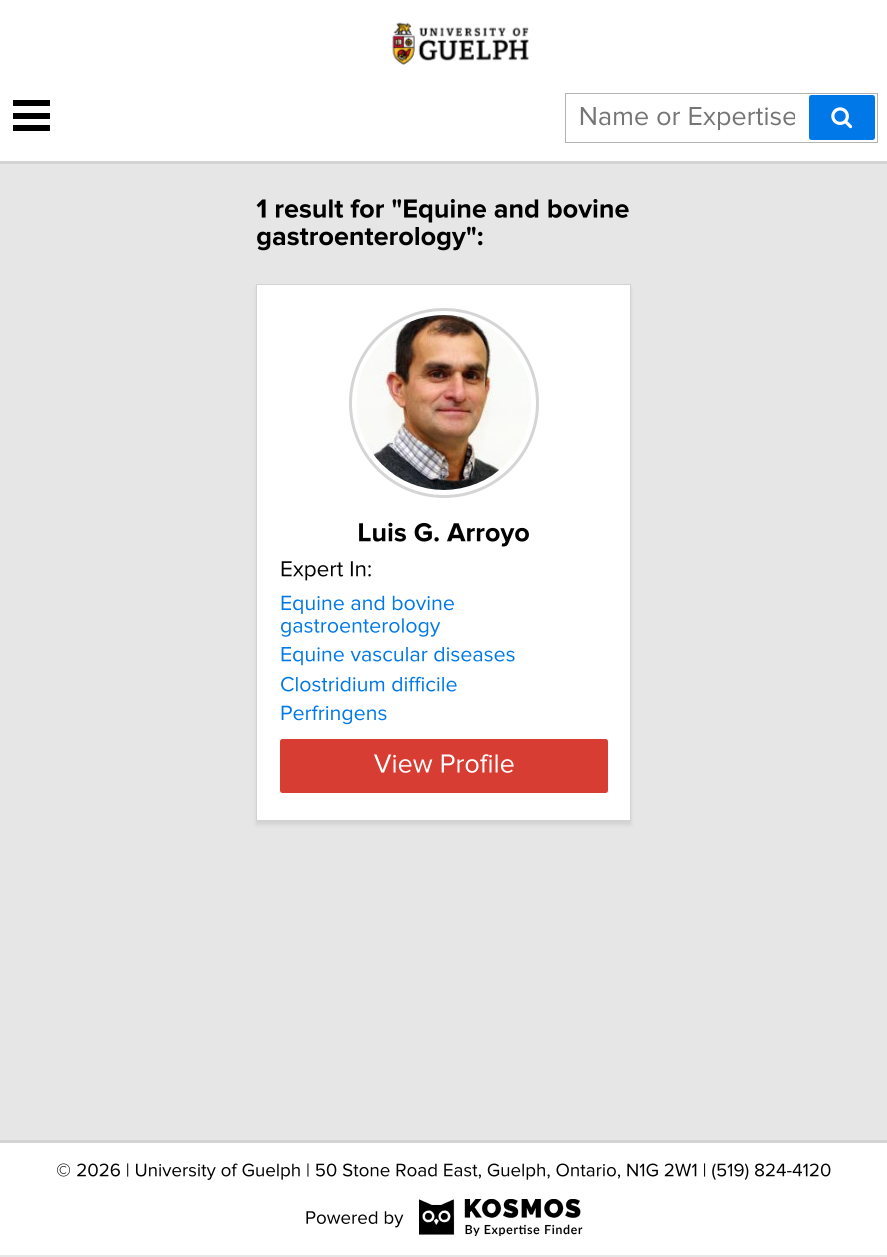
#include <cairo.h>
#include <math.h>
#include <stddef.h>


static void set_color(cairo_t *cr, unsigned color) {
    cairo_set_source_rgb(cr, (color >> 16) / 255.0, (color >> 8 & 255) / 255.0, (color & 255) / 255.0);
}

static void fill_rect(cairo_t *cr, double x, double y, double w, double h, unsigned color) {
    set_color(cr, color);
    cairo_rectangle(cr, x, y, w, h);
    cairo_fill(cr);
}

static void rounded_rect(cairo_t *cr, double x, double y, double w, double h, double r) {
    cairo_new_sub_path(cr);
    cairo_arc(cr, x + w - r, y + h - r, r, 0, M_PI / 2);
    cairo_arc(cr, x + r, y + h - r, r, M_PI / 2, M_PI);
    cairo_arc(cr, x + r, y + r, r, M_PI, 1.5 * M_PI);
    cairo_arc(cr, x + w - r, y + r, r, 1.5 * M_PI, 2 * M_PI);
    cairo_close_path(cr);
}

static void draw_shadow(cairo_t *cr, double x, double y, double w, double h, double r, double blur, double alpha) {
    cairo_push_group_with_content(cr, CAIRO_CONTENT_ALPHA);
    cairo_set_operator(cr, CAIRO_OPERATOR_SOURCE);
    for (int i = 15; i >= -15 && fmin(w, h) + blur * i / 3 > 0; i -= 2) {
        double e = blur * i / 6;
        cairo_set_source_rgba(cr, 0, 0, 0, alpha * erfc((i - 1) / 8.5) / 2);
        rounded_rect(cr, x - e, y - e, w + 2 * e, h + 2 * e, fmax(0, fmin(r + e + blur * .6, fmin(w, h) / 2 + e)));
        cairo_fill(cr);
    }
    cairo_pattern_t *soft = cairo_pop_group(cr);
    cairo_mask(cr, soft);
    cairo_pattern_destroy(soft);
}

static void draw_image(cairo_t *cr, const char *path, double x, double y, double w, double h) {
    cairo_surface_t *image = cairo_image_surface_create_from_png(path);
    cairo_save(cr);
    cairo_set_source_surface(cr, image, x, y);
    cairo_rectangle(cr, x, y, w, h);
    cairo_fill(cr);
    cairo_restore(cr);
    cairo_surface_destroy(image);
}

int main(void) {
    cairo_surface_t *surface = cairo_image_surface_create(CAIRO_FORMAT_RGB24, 887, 1257);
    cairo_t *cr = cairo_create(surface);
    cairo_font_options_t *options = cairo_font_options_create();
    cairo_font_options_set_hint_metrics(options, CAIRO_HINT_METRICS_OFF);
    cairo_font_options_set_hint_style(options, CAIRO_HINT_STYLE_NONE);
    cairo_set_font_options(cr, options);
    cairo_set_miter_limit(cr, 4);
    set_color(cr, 0xE6E6E6);
    cairo_paint(cr);
    fill_rect(cr, 0, 0, 887, 161, 0xFFFFFF);
    fill_rect(cr, 0, 161, 887, 3, 0xD3D3D3);
    draw_image(cr, "assets/img1.png", 392, 22, 137, 43);
    fill_rect(cr, 13, 100, 37, 6, 0x000000);
    fill_rect(cr, 13, 113, 37, 6, 0x000000);
    fill_rect(cr, 13, 125, 37, 6, 0x000000);
    cairo_rectangle(cr, 565.5, 93.5, 312, 49);
    set_color(cr, 0xB3B3B3);
    cairo_set_line_width(cr, 1);
    cairo_stroke(cr);
    draw_image(cr, "assets/img2.png", 580, 107, 215, 23);
    set_color(cr, 0x0078E7);
    rounded_rect(cr, 809, 95, 66, 45, 2.5);
    cairo_fill(cr);
    draw_image(cr, "assets/img3.png", 831, 107, 22, 22);
    draw_image(cr, "assets/img4.png", 256, 199, 373, 24);
    draw_image(cr, "assets/img5.png", 257, 226, 226, 25);
    set_color(cr, 0x000000);
    draw_shadow(cr, 256, 288, 375, 537, 0, 2, 0.09);
    set_color(cr, 0xFFFFFF);
    cairo_rectangle(cr, 256.5, 284.5, 374, 536);
    cairo_fill_preserve(cr);
    set_color(cr, 0xD3D3D3);
    cairo_stroke(cr);
    cairo_arc(cr, 444, 403, 93.5, 0, 2 * M_PI);
    set_color(cr, 0xD5D5D5);
    cairo_set_line_width(cr, 3);
    cairo_stroke(cr);
    draw_image(cr, "assets/img6.png", 357, 315, 174, 175);
    draw_image(cr, "assets/img7.png", 359, 522, 170, 25);
    draw_image(cr, "assets/img8.png", 281, 561, 90, 20);
    draw_image(cr, "assets/img9.png", 281, 595, 173, 19);
    draw_image(cr, "assets/img10.png", 281, 618, 160, 19);
    draw_image(cr, "assets/img11.png", 281, 647, 63, 19);
    draw_image(cr, "assets/img12.png", 350, 647, 165, 15);
    draw_image(cr, "assets/img13.png", 281, 676, 176, 16);
    draw_image(cr, "assets/img14.png", 281, 705, 106, 20);
    set_color(cr, 0xD73D32);
    rounded_rect(cr, 280, 739, 328, 54, 2.5);
    cairo_fill(cr);
    draw_image(cr, "assets/img15.png", 374, 754, 140, 19);
    fill_rect(cr, 0, 1143, 887, 112, 0xFFFFFF);
    fill_rect(cr, 0, 1140, 887, 3, 0xD3D3D3);
    draw_image(cr, "assets/img16.png", 57, 1163, 13, 14);
    draw_image(cr, "assets/img17.png", 77, 1163, 754, 17);
    draw_image(cr, "assets/img18.png", 306, 1211, 98, 17);
    draw_image(cr, "assets/img19.png", 419, 1199, 164, 37);
    cairo_surface_write_to_png(surface, "output.png");
    cairo_font_options_destroy(options);
    cairo_destroy(cr);
    cairo_surface_destroy(surface);
    return 0;
}
